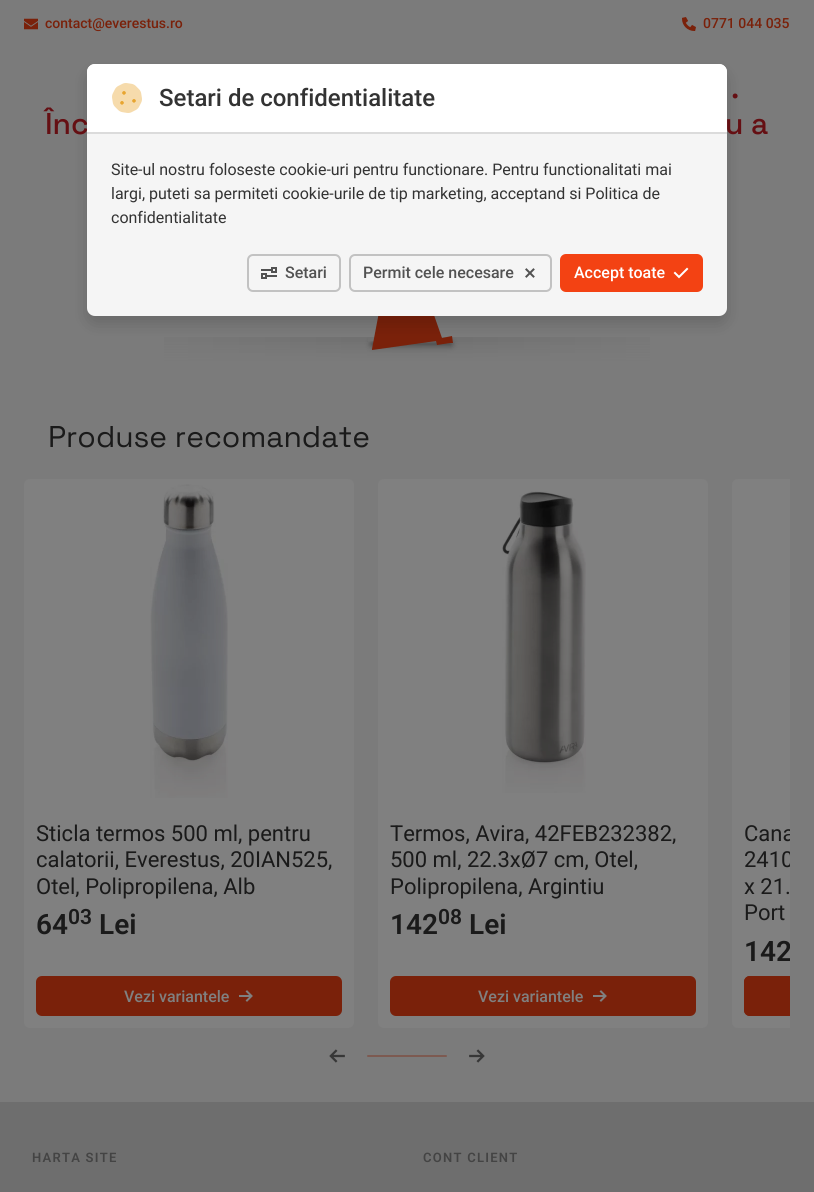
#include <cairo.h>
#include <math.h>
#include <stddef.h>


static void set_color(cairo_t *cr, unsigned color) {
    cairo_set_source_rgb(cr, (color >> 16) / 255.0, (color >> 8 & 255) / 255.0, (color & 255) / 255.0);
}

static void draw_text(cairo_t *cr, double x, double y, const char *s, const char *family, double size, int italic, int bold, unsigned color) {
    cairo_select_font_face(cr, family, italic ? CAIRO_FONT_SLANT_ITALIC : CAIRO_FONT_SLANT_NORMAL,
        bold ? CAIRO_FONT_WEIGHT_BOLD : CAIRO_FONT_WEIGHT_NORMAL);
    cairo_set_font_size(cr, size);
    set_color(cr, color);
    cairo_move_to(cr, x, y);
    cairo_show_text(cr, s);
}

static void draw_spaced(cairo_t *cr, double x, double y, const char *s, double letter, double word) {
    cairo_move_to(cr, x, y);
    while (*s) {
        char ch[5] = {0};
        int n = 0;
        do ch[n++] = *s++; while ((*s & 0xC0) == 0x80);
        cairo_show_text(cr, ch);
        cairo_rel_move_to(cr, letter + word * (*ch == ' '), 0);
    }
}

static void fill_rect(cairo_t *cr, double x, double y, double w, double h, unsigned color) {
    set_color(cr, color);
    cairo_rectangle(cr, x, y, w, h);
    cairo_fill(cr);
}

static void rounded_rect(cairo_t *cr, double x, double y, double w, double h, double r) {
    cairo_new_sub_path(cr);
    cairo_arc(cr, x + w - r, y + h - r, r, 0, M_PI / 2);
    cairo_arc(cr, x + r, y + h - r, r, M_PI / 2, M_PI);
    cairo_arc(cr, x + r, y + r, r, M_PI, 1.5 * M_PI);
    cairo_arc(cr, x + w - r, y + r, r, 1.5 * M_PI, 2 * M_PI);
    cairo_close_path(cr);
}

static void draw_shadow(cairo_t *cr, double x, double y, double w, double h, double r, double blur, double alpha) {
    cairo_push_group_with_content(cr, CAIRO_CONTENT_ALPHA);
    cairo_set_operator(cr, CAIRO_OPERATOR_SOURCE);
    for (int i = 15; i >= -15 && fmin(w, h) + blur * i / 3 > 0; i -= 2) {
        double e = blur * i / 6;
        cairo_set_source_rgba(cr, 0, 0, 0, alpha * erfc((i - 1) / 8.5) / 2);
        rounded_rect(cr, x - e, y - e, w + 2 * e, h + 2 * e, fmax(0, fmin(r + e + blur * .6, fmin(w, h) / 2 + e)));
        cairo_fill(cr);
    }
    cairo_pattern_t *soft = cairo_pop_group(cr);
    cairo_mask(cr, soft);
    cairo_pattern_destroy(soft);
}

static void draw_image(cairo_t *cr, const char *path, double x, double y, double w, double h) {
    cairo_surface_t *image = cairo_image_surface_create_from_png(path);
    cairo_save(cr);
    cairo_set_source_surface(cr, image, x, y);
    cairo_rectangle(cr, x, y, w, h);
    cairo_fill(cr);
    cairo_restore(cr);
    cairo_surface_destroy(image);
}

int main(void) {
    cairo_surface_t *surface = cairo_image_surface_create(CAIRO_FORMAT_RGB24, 814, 1192);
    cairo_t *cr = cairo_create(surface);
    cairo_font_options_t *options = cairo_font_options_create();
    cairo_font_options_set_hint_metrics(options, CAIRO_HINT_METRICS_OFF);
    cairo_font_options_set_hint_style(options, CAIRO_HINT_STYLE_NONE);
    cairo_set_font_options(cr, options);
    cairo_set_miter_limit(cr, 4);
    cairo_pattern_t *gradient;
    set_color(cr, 0x7B7B7B);
    cairo_paint(cr);
    draw_image(cr, "assets/img1.png", 24, 18, 14, 12);
    draw_text(cr, 45, 28, "contact@everestus.ro", "Roboto Medium", 14, 0, 0, 0x7A210A);
    draw_image(cr, "assets/img2.png", 682, 17, 14, 14);
    draw_text(cr, 703, 28, "0771 044 035", "Roboto Medium", 14, 0, 0, 0x7A210A);
    gradient = cairo_pattern_create_linear(24, 349, 790, 349);
    cairo_pattern_add_color_stop_rgba(gradient, 0.1, 0.482, 0.482, 0.482, 1);
    cairo_pattern_add_color_stop_rgba(gradient, 0.5, 0.435, 0.435, 0.435, 1);
    cairo_pattern_add_color_stop_rgba(gradient, 0.9, 0.482, 0.482, 0.482, 1);
    cairo_set_source(cr, gradient);
    cairo_pattern_destroy(gradient);
    cairo_rectangle(cr, 164, 337, 486, 24);
    cairo_fill(cr);
    gradient = cairo_pattern_create_linear(407, 361, 407, 337);
    cairo_pattern_add_color_stop_rgba(gradient, 0, 0.482, 0.482, 0.482, 1);
    cairo_pattern_add_color_stop_rgba(gradient, 1, 0.482, 0.482, 0.482, 0);
    cairo_set_source(cr, gradient);
    cairo_pattern_destroy(gradient);
    cairo_rectangle(cr, 164, 342, 486, 19);
    cairo_fill(cr);
    cairo_save(cr);
    cairo_set_fill_rule(cr, CAIRO_FILL_RULE_EVEN_ODD);
    cairo_new_path(cr);
    cairo_move_to(cr, 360, 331);
    cairo_line_to(cr, 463, 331);
    cairo_line_to(cr, 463, 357);
    cairo_line_to(cr, 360, 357);
    cairo_close_path(cr);
    cairo_move_to(cr, 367.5, 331.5);
    cairo_line_to(cr, 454.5, 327);
    cairo_line_to(cr, 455, 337);
    cairo_line_to(cr, 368, 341.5);
    cairo_close_path(cr);
    cairo_clip(cr);
    set_color(cr, 0x404040);
    draw_shadow(cr, 372, 343, 79, 2, 0, 3.5, 1);
    cairo_restore(cr);
    set_color(cr, 0x7A210A);
    cairo_set_fill_rule(cr, CAIRO_FILL_RULE_EVEN_ODD);
    cairo_new_path(cr);
    cairo_move_to(cr, 450, 343);
    cairo_line_to(cr, 437, 345);
    cairo_line_to(cr, 436, 341);
    cairo_line_to(cr, 372, 350);
    cairo_line_to(cr, 372, 349);
    cairo_line_to(cr, 379, 312);
    cairo_line_to(cr, 424, 306);
    cairo_line_to(cr, 422, 299);
    cairo_line_to(cr, 375, 306);
    cairo_line_to(cr, 374, 299);
    cairo_line_to(cr, 426, 292);
    cairo_line_to(cr, 442, 338);
    cairo_line_to(cr, 452, 336);
    cairo_line_to(cr, 453, 343);
    cairo_close_path(cr);
    cairo_move_to(cr, 419, 275);
    cairo_curve_to(cr, 410, 276, 412, 289, 421, 288);
    cairo_curve_to(cr, 429, 287, 428, 273, 419, 275);
    cairo_close_path(cr);
    cairo_move_to(cr, 373, 288);
    cairo_curve_to(cr, 374, 297, 387, 295, 386, 286);
    cairo_curve_to(cr, 385, 277, 372, 279, 373, 288);
    cairo_close_path(cr);
    cairo_fill(cr);
    set_color(cr, 0x000000);
    draw_shadow(cr, 87, 72, 640, 252, 8, 8, 0.15);
    draw_text(cr, 45, 134, "Înc", "Space Grotesk Medium", 30, 0, 0, 0x650F13);
    set_color(cr, 0xF5F5F5);
    rounded_rect(cr, 87, 64, 640, 252, 8);
    cairo_fill(cr);
    set_color(cr, 0xFFFFFF);
    cairo_new_path(cr);
    cairo_move_to(cr, 95, 64);
    cairo_line_to(cr, 719, 64);
    cairo_curve_to(cr, 723.5, 64, 727, 67.5, 727, 72);
    cairo_line_to(cr, 727, 134);
    cairo_line_to(cr, 87, 134);
    cairo_line_to(cr, 87, 72);
    cairo_curve_to(cr, 87, 67.5, 90.5, 64, 95, 64);
    cairo_close_path(cr);
    cairo_fill(cr);
    fill_rect(cr, 87, 132, 640, 2, 0xDBDBDB);
    draw_image(cr, "assets/img3.png", 112, 83, 30, 30);
    draw_text(cr, 159, 106, "Setari de confidentialitate", "Roboto Medium", 24, 0, 0, 0x333333);
    draw_text(cr, 111, 175, "Site-ul nostru foloseste cookie-uri pentru functionare. Pentru functionalitati mai", "Roboto", 16, 0, 0, 0x333333);
    draw_text(cr, 111, 199, "largi, puteti sa permiteti cookie-urile de tip marketing, acceptand si Politica de", "Roboto", 16, 0, 0, 0x333333);
    draw_text(cr, 111, 223, "confidentialitate", "Roboto", 16, 0, 0, 0x333333);
    rounded_rect(cr, 248, 255, 92, 36, 5);
    set_color(cr, 0xC2C2C2);
    cairo_stroke(cr);
    draw_image(cr, "assets/img4.png", 261, 267, 16, 12);
    draw_text(cr, 285, 278, "Setari", "Roboto Medium", 16, 0, 0, 0x525252);
    rounded_rect(cr, 350, 255, 201, 36, 5);
    set_color(cr, 0xC2C2C2);
    cairo_stroke(cr);
    draw_text(cr, 363, 278, "Permit cele necesare", "Roboto Medium", 16, 0, 0, 0x525252);
    draw_image(cr, "assets/img5.png", 525, 268, 10, 10);
    set_color(cr, 0xF34213);
    rounded_rect(cr, 561, 255, 141, 36, 5);
    cairo_fill_preserve(cr);
    cairo_stroke(cr);
    draw_text(cr, 574, 278, "Accept toate", "Roboto Medium", 16, 0, 0, 0xFFFFFF);
    draw_image(cr, "assets/img6.png", 673, 267, 16, 12);
    draw_text(cr, 731, 98, ".", "Space Grotesk Medium", 30, 0, 0, 0x650F13);
    draw_text(cr, 725, 134, "u a", "Space Grotesk Medium", 30, 0, 0, 0x650F13);
    draw_text(cr, 48, 447, "Produse recomandate", "Space Grotesk", 30, 0, 0, 0x1A1A1A);
    set_color(cr, 0x808080);
    rounded_rect(cr, 24, 479, 330, 549, 6);
    cairo_fill(cr);
    draw_image(cr, "assets/img7.png", 150, 484, 78, 314);
    draw_text(cr, 36, 841, "Sticla termos 500 ml, pentru", "Roboto", 22, 0, 0, 0x1A1A1A);
    draw_text(cr, 36, 867, "calatorii, Everestus, 20IAN525,", "Roboto", 22, 0, 0, 0x1A1A1A);
    draw_text(cr, 36, 894, "Otel, Polipropilena, Alb", "Roboto", 22, 0, 0, 0x1A1A1A);
    draw_text(cr, 36, 934, "64", "Roboto SemiBold", 28, 0, 0, 0x1A1A1A);
    draw_text(cr, 68, 924, "03", "Roboto SemiBold", 21, 0, 0, 0x1A1A1A);
    draw_text(cr, 99, 934, "Lei", "Roboto SemiBold", 28, 0, 0, 0x1A1A1A);
    set_color(cr, 0x7A210A);
    rounded_rect(cr, 37, 977, 304, 38, 5);
    cairo_fill_preserve(cr);
    cairo_stroke(cr);
    draw_text(cr, 124, 1002, "Vezi variantele", "Roboto Medium", 16, 0, 0, 0x808080);
    draw_image(cr, "assets/img8.png", 239, 990, 14, 12);
    rounded_rect(cr, 378, 479, 330, 549, 6);
    cairo_fill(cr);
    draw_image(cr, "assets/img9.png", 502, 491, 84, 302);
    draw_text(cr, 390, 841, "Termos, Avira, 42FEB232382,", "Roboto", 22, 0, 0, 0x1A1A1A);
    draw_text(cr, 390, 867, "500 ml, 22.3xØ7 cm, Otel,", "Roboto", 22, 0, 0, 0x1A1A1A);
    draw_text(cr, 390, 894, "Polipropilena, Argintiu", "Roboto", 22, 0, 0, 0x1A1A1A);
    draw_text(cr, 390, 934, "142", "Roboto SemiBold", 28, 0, 0, 0x1A1A1A);
    draw_text(cr, 438, 924, "08", "Roboto SemiBold", 21, 0, 0, 0x1A1A1A);
    draw_text(cr, 469, 934, "Lei", "Roboto SemiBold", 28, 0, 0, 0x1A1A1A);
    set_color(cr, 0x7A210A);
    rounded_rect(cr, 391, 977, 304, 38, 5);
    cairo_fill_preserve(cr);
    cairo_stroke(cr);
    draw_text(cr, 478, 1002, "Vezi variantele", "Roboto Medium", 16, 0, 0, 0x808080);
    draw_image(cr, "assets/img8.png", 593, 990, 14, 12);
    cairo_new_path(cr);
    cairo_move_to(cr, 738, 479);
    cairo_line_to(cr, 790, 479);
    cairo_line_to(cr, 790, 1028);
    cairo_line_to(cr, 738, 1028);
    cairo_curve_to(cr, 734.5, 1028, 732, 1025.5, 732, 1022);
    cairo_line_to(cr, 732, 485);
    cairo_curve_to(cr, 732, 481.5, 734.5, 479, 738, 479);
    cairo_close_path(cr);
    cairo_fill(cr);
    cairo_save(cr);
    cairo_set_fill_rule(cr, CAIRO_FILL_RULE_WINDING);
    cairo_rectangle(cr, 24, 479, 766, 549);
    cairo_clip(cr);
    draw_text(cr, 744, 841, "Cana", "Roboto", 22, 0, 0, 0x1A1A1A);
    draw_text(cr, 744, 867, "2410", "Roboto", 22, 0, 0, 0x1A1A1A);
    cairo_restore(cr);
    draw_text(cr, 744, 894, "x 21.", "Roboto", 22, 0, 0, 0x1A1A1A);
    draw_text(cr, 744, 920, "Port", "Roboto", 22, 0, 0, 0x1A1A1A);
    cairo_save(cr);
    cairo_set_fill_rule(cr, CAIRO_FILL_RULE_WINDING);
    cairo_rectangle(cr, 24, 479, 766, 549);
    cairo_clip(cr);
    draw_text(cr, 744, 961, "142", "Roboto SemiBold", 28, 0, 0, 0x1A1A1A);
    cairo_restore(cr);
    set_color(cr, 0x7A210A);
    cairo_new_path(cr);
    cairo_move_to(cr, 750, 976);
    cairo_line_to(cr, 790, 976);
    cairo_line_to(cr, 790, 1016);
    cairo_line_to(cr, 750, 1016);
    cairo_curve_to(cr, 746.5, 1016, 744, 1013.5, 744, 1010);
    cairo_line_to(cr, 744, 982);
    cairo_curve_to(cr, 744, 978.5, 746.5, 976, 750, 976);
    cairo_close_path(cr);
    cairo_fill(cr);
    cairo_save(cr);
    cairo_set_fill_rule(cr, CAIRO_FILL_RULE_WINDING);
    cairo_rectangle(cr, 24, 479, 766, 549);
    cairo_clip(cr);
    rounded_rect(cr, 745, 977, 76, 38, 5);
    cairo_stroke(cr);
    cairo_restore(cr);
    draw_image(cr, "assets/img10.png", 329, 1049, 16, 14);
    set_color(cr, 0x7D5A51);
    rounded_rect(cr, 367, 1055, 80, 2, 1);
    cairo_fill(cr);
    draw_image(cr, "assets/img11.png", 469, 1049, 16, 14);
    fill_rect(cr, 0, 1102, 814, 90, 0x6E6E6E);
    cairo_select_font_face(cr, "Roboto SemiBold", CAIRO_FONT_SLANT_NORMAL, CAIRO_FONT_WEIGHT_NORMAL);
    cairo_set_font_size(cr, 13);
    set_color(cr, 0x444444);
    draw_spaced(cr, 32, 1162, "HARTA SITE", 1.25, 0);
    draw_spaced(cr, 423, 1162, "CONT CLIENT", 1.25, 0);
    cairo_surface_write_to_png(surface, "output.png");
    cairo_font_options_destroy(options);
    cairo_destroy(cr);
    cairo_surface_destroy(surface);
    return 0;
}
